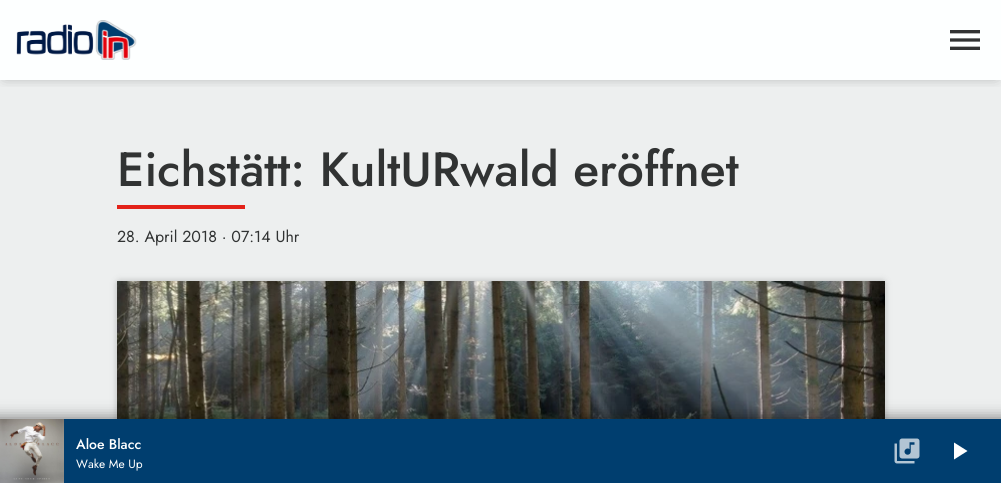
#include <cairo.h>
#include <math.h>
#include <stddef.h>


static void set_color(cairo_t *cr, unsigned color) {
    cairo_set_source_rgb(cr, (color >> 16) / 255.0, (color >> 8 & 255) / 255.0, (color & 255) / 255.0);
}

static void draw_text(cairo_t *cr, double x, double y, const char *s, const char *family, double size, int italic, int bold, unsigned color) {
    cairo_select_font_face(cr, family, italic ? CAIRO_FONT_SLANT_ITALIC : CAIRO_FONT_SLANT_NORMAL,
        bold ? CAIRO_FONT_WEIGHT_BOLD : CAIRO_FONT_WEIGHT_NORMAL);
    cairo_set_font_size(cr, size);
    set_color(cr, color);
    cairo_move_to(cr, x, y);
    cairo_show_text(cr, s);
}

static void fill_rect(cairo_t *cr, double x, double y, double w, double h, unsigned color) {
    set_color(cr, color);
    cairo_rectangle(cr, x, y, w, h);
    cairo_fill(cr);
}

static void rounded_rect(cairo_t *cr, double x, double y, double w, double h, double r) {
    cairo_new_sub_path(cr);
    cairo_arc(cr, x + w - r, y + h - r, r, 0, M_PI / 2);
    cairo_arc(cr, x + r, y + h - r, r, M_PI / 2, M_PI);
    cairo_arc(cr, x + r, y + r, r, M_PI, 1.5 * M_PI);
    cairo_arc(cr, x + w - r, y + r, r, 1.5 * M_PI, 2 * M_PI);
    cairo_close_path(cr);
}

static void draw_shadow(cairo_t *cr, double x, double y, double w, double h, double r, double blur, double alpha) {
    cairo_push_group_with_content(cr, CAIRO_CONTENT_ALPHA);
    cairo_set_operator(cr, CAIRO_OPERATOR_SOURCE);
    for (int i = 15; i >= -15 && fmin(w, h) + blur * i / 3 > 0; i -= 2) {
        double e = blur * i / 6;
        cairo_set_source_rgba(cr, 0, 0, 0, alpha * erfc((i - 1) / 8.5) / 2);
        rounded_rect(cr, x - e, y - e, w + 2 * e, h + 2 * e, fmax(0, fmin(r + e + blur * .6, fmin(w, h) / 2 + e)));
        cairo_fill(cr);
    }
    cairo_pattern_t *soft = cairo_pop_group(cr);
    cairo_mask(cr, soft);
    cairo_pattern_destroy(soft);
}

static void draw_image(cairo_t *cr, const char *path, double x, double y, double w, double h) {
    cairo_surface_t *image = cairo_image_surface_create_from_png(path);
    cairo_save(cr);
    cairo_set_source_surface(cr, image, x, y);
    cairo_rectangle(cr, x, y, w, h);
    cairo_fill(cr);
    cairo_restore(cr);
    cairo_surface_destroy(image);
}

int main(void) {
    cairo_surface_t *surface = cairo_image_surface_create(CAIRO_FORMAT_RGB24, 1001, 483);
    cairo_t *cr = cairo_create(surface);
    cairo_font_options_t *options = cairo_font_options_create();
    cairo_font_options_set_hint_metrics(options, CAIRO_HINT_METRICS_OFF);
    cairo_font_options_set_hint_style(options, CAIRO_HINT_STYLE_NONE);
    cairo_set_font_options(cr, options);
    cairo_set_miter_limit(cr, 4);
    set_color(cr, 0xFDFFFF);
    cairo_paint(cr);
    fill_rect(cr, 0, 80, 1001, 339, 0xEDEFEF);
    cairo_save(cr);
    cairo_rectangle(cr, 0, 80, 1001, 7);
    cairo_clip(cr);
    set_color(cr, 0x000000);
    draw_shadow(cr, 5, 5, 991, 70, 0, 7.5, 0.4);
    cairo_restore(cr);
    draw_image(cr, "assets/img1.png", 16, 20, 121, 40);
    draw_image(cr, "assets/img2.png", 950, 30, 30, 20);
    draw_text(cr, 117, 186, "Eichstätt: KultURwald eröffnet", "Jost Medium", 48, 0, 0, 0x313333);
    fill_rect(cr, 117, 205, 128, 4, 0xE32219);
    draw_text(cr, 117, 242, "28. April 2018 · 07:14 Uhr", "Jost", 16, 0, 0, 0x313333);
    set_color(cr, 0x000000);
    draw_shadow(cr, 119, 283, 764, 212, 0, 4, 0.4);
    draw_image(cr, "assets/img3.png", 117, 281, 768, 138);
    draw_shadow(cr, -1, 418, 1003, 2, 0, 7.5, 0.5);
    fill_rect(cr, 64, 419, 937, 64, 0x003E6F);
    draw_image(cr, "assets/img4.png", 0, 419, 64, 64);
    draw_text(cr, 76, 449, "Aloe Blacc", "Jost Medium", 14, 0, 0, 0xFFFFFF);
    draw_text(cr, 76, 468, "Wake Me Up", "Jost", 12, 0, 0, 0xFFFFFF);
    draw_image(cr, "assets/img5.png", 894, 438, 26, 26);
    cairo_new_path(cr);
    cairo_move_to(cr, 954, 442.5);
    cairo_line_to(cr, 967.5, 451);
    cairo_line_to(cr, 954, 459.5);
    cairo_close_path(cr);
    cairo_fill(cr);
    cairo_surface_write_to_png(surface, "output.png");
    cairo_font_options_destroy(options);
    cairo_destroy(cr);
    cairo_surface_destroy(surface);
    return 0;
}
